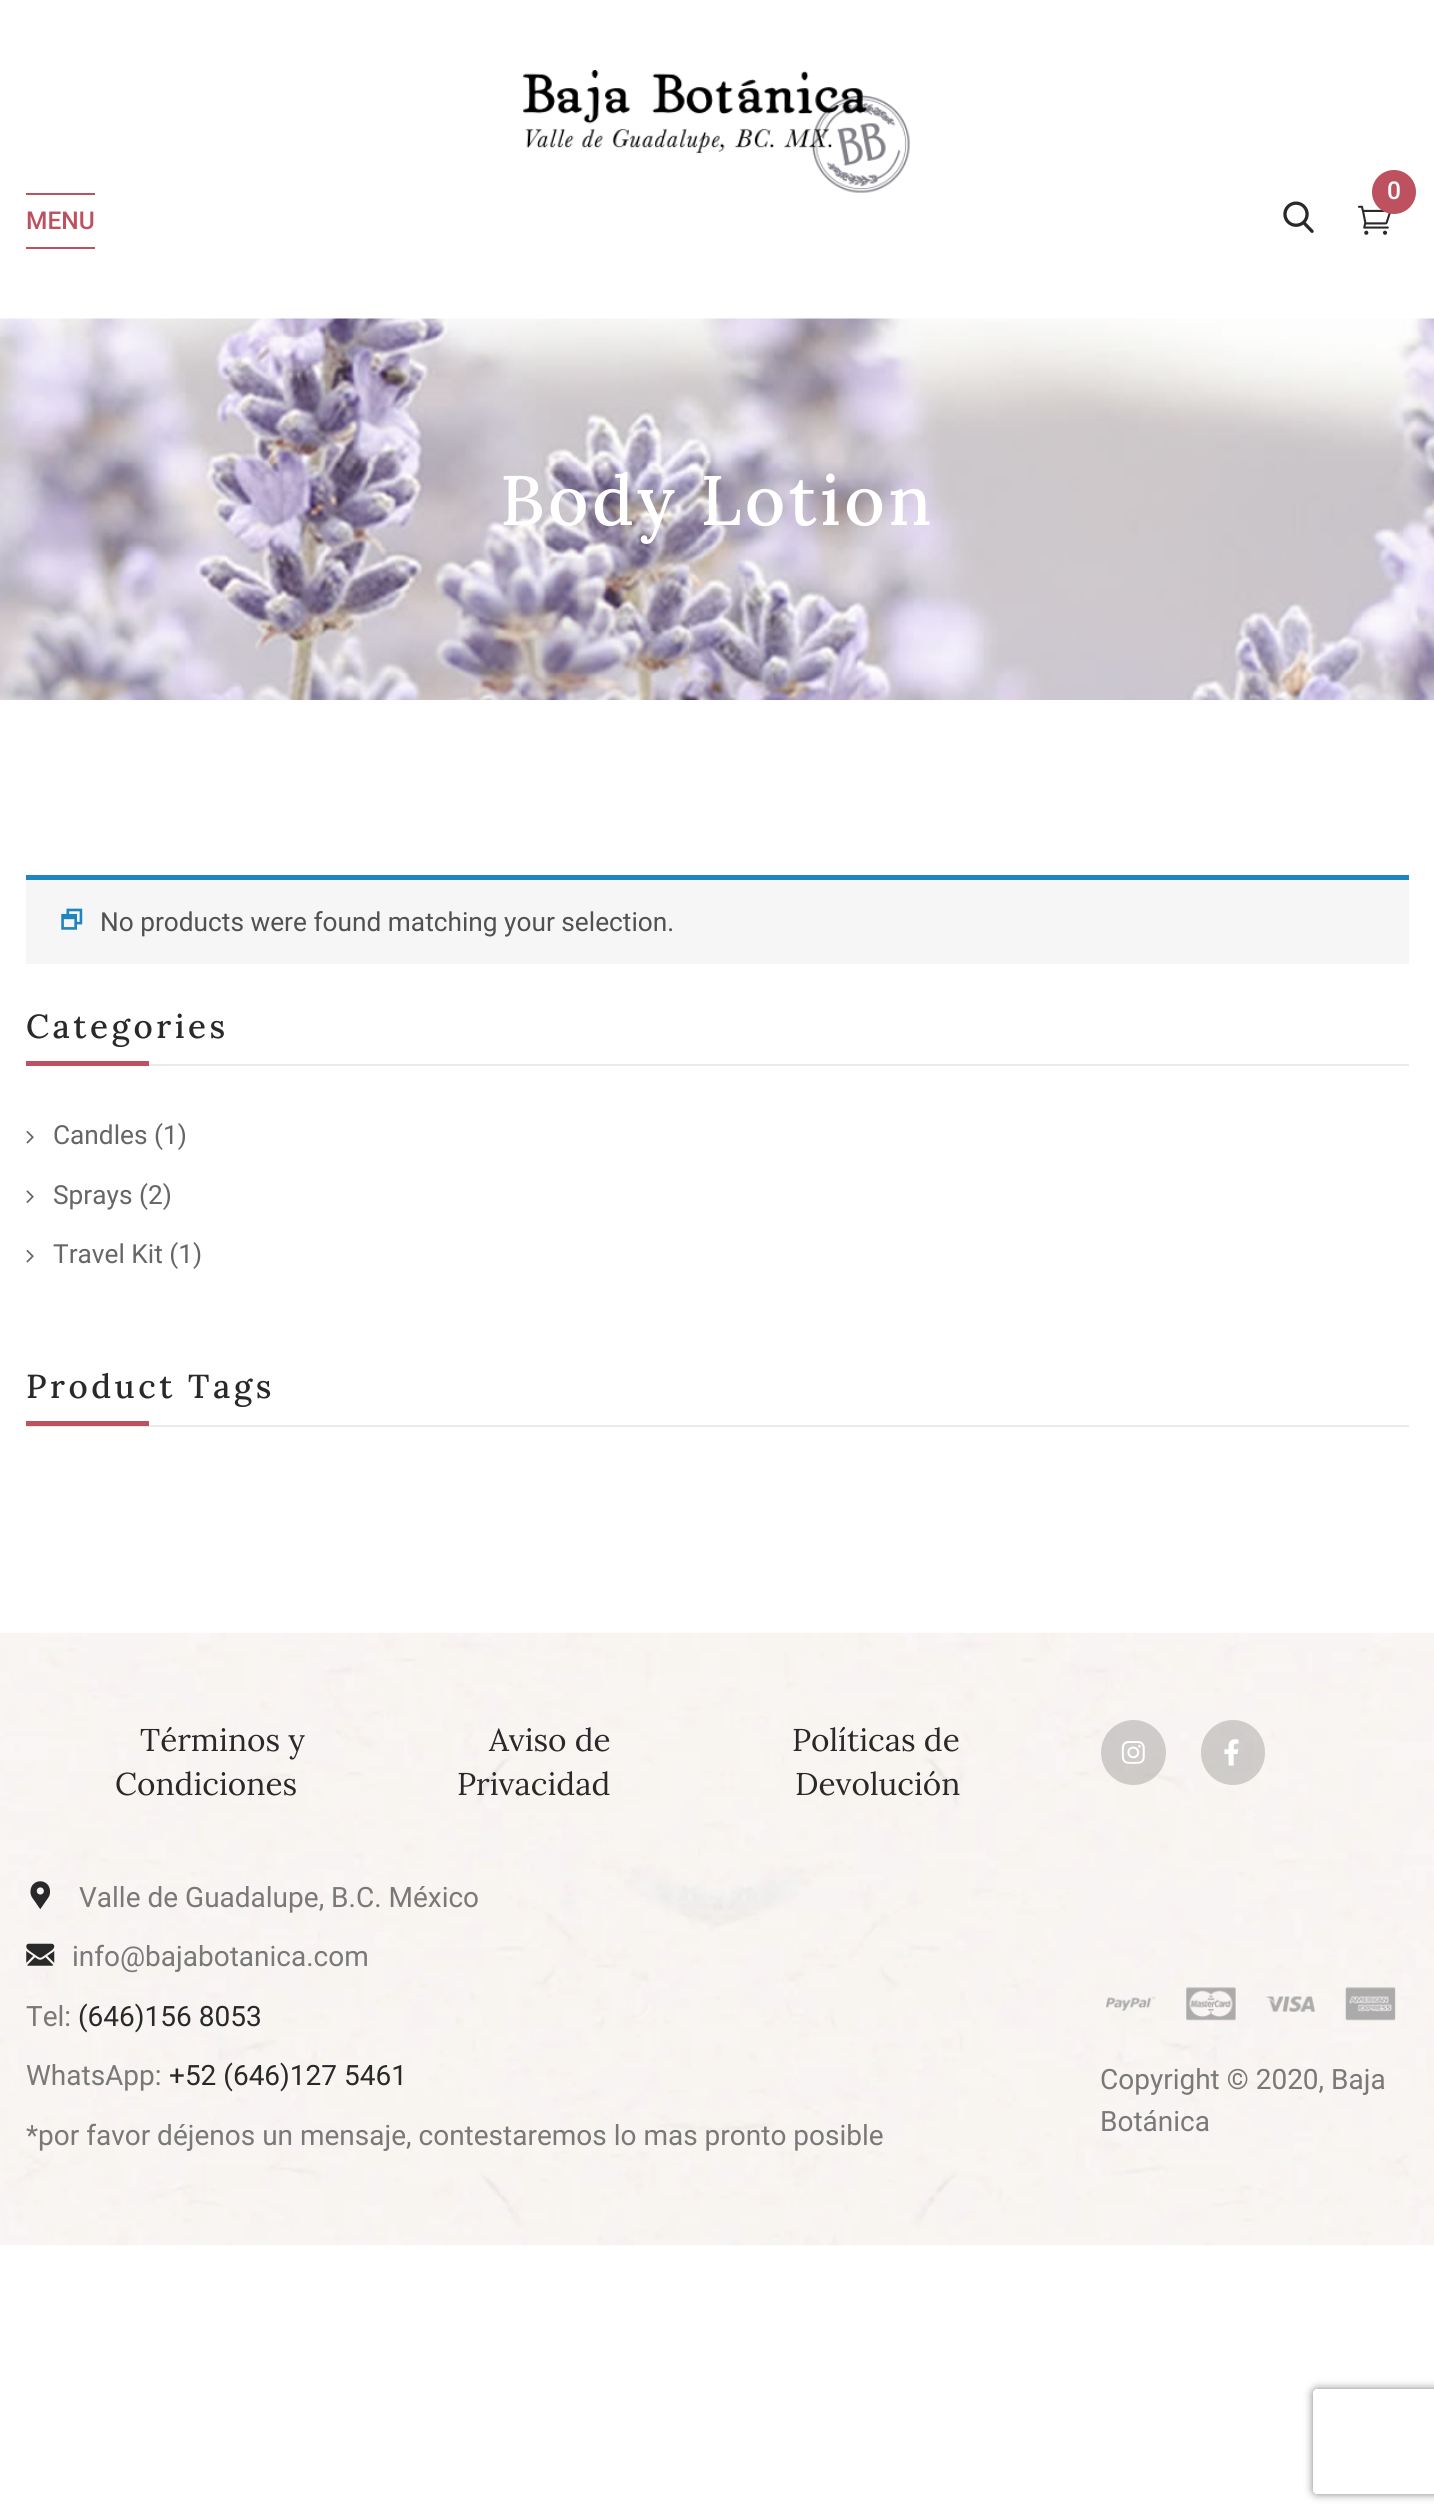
#include <cairo.h>
#include <math.h>
#include <stddef.h>


static void set_color(cairo_t *cr, unsigned color) {
    cairo_set_source_rgb(cr, (color >> 16) / 255.0, (color >> 8 & 255) / 255.0, (color & 255) / 255.0);
}

static void draw_text(cairo_t *cr, double x, double y, const char *s, const char *family, double size, int italic, int bold, unsigned color) {
    cairo_select_font_face(cr, family, italic ? CAIRO_FONT_SLANT_ITALIC : CAIRO_FONT_SLANT_NORMAL,
        bold ? CAIRO_FONT_WEIGHT_BOLD : CAIRO_FONT_WEIGHT_NORMAL);
    cairo_set_font_size(cr, size);
    set_color(cr, color);
    cairo_move_to(cr, x, y);
    cairo_show_text(cr, s);
}

static void draw_spaced(cairo_t *cr, double x, double y, const char *s, double letter, double word) {
    cairo_move_to(cr, x, y);
    while (*s) {
        char ch[5] = {0};
        int n = 0;
        do ch[n++] = *s++; while ((*s & 0xC0) == 0x80);
        cairo_show_text(cr, ch);
        cairo_rel_move_to(cr, letter + word * (*ch == ' '), 0);
    }
}

static void fill_rect(cairo_t *cr, double x, double y, double w, double h, unsigned color) {
    set_color(cr, color);
    cairo_rectangle(cr, x, y, w, h);
    cairo_fill(cr);
}

static void rounded_rect(cairo_t *cr, double x, double y, double w, double h, double r) {
    cairo_new_sub_path(cr);
    cairo_arc(cr, x + w - r, y + h - r, r, 0, M_PI / 2);
    cairo_arc(cr, x + r, y + h - r, r, M_PI / 2, M_PI);
    cairo_arc(cr, x + r, y + r, r, M_PI, 1.5 * M_PI);
    cairo_arc(cr, x + w - r, y + r, r, 1.5 * M_PI, 2 * M_PI);
    cairo_close_path(cr);
}

static void draw_shadow(cairo_t *cr, double x, double y, double w, double h, double r, double blur, double alpha) {
    cairo_push_group_with_content(cr, CAIRO_CONTENT_ALPHA);
    cairo_set_operator(cr, CAIRO_OPERATOR_SOURCE);
    for (int i = 15; i >= -15 && fmin(w, h) + blur * i / 3 > 0; i -= 2) {
        double e = blur * i / 6;
        cairo_set_source_rgba(cr, 0, 0, 0, alpha * erfc((i - 1) / 8.5) / 2);
        rounded_rect(cr, x - e, y - e, w + 2 * e, h + 2 * e, fmax(0, fmin(r + e + blur * .6, fmin(w, h) / 2 + e)));
        cairo_fill(cr);
    }
    cairo_pattern_t *soft = cairo_pop_group(cr);
    cairo_mask(cr, soft);
    cairo_pattern_destroy(soft);
}

static void draw_image(cairo_t *cr, const char *path, double x, double y, double w, double h) {
    cairo_surface_t *image = cairo_image_surface_create_from_png(path);
    cairo_save(cr);
    cairo_set_source_surface(cr, image, x, y);
    cairo_rectangle(cr, x, y, w, h);
    cairo_fill(cr);
    cairo_restore(cr);
    cairo_surface_destroy(image);
}

int main(void) {
    cairo_surface_t *surface = cairo_image_surface_create(CAIRO_FORMAT_RGB24, 1434, 2517);
    cairo_t *cr = cairo_create(surface);
    cairo_font_options_t *options = cairo_font_options_create();
    cairo_font_options_set_hint_metrics(options, CAIRO_HINT_METRICS_OFF);
    cairo_font_options_set_hint_style(options, CAIRO_HINT_STYLE_NONE);
    cairo_set_font_options(cr, options);
    cairo_set_miter_limit(cr, 4);
    set_color(cr, 0xFFFFFF);
    cairo_paint(cr);
    draw_image(cr, "assets/img1.png", 523, 70, 387, 123);
    draw_image(cr, "assets/img2.png", 1358, 205, 33, 30);
    set_color(cr, 0xBD515F);
    cairo_arc(cr, 1394, 192, 22, 0, 2 * M_PI);
    cairo_fill(cr);
    draw_text(cr, 1387, 199, "0", "Roboto Medium", 24.5, 0, 0, 0xFFFFFF);
    draw_image(cr, "assets/img3.png", 1283, 201, 31, 32);
    fill_rect(cr, 26, 193, 69, 2, 0xBD515F);
    fill_rect(cr, 26, 247, 69, 2, 0xBD515F);
    draw_text(cr, 26, 229, "MENU", "Roboto Medium", 24.5, 0, 0, 0xBD515F);
    draw_image(cr, "assets/img4.png", 0, 318, 1434, 382);
    cairo_select_font_face(cr, "Lora Medium", CAIRO_FONT_SLANT_NORMAL, CAIRO_FONT_WEIGHT_NORMAL);
    cairo_set_font_size(cr, 70);
    set_color(cr, 0xFFFFFF);
    draw_spaced(cr, 500, 525, "Body Lotion", 3.5, 0);
    fill_rect(cr, 26, 880, 1383, 84, 0xF7F6F7);
    fill_rect(cr, 26, 875, 1383, 5, 0x1E85BE);
    draw_image(cr, "assets/img5.png", 61, 908, 22, 22);
    draw_text(cr, 100, 931, "No products were found matching your selection.", "Roboto", 26.25, 0, 0, 0x515151);
    fill_rect(cr, 149, 1064, 1260, 2, 0xEAEAEA);
    cairo_select_font_face(cr, "Lora Medium", CAIRO_FONT_SLANT_NORMAL, CAIRO_FONT_WEIGHT_NORMAL);
    cairo_set_font_size(cr, 33.25);
    set_color(cr, 0x292929);
    draw_spaced(cr, 26, 1038, "Categories", 3.5, 0);
    fill_rect(cr, 26, 1061, 123, 5, 0xBD515F);
    draw_image(cr, "assets/img6.png", 26, 1130, 8, 14);
    draw_text(cr, 53, 1144, "Candles (1)", "Roboto", 26.25, 0, 0, 0x666666);
    draw_image(cr, "assets/img7.png", 26, 1190, 8, 13);
    draw_text(cr, 53, 1204, "Sprays (2)", "Roboto", 26.25, 0, 0, 0x666666);
    draw_image(cr, "assets/img6.png", 26, 1249, 8, 14);
    draw_text(cr, 53, 1263, "Travel Kit (1)", "Roboto", 26.25, 0, 0, 0x666666);
    fill_rect(cr, 26, 1425, 1383, 2, 0xEAEAEA);
    cairo_select_font_face(cr, "Lora Medium", CAIRO_FONT_SLANT_NORMAL, CAIRO_FONT_WEIGHT_NORMAL);
    cairo_set_font_size(cr, 33.25);
    set_color(cr, 0x292929);
    draw_spaced(cr, 26, 1398, "Product Tags", 3.5, 0);
    fill_rect(cr, 26, 1421, 123, 5, 0xBD515F);
    draw_image(cr, "assets/img8.png", 0, 1632, 1434, 614);
    draw_text(cr, 140, 1751, "Términos y", "Lora", 31.5, 0, 0, 0x292929);
    draw_text(cr, 115, 1795, "Condiciones", "Lora", 31.5, 0, 0, 0x292929);
    draw_text(cr, 489, 1751, "Aviso de", "Lora", 31.5, 0, 0, 0x292929);
    draw_text(cr, 457, 1795, "Privacidad", "Lora", 31.5, 0, 0, 0x292929);
    draw_text(cr, 792, 1751, "Políticas de", "Lora", 31.5, 0, 0, 0x292929);
    draw_text(cr, 795, 1795, "Devolución", "Lora", 31.5, 0, 0, 0x292929);
    draw_image(cr, "assets/img9.png", 30, 1881, 20, 29);
    draw_text(cr, 79, 1907, "Valle de Guadalupe, B.C. México", "Roboto", 28, 0, 0, 0x797979);
    draw_image(cr, "assets/img10.png", 26, 1943, 29, 23);
    draw_text(cr, 72, 1966, "info@bajabotanica.com", "Roboto", 28, 0, 0, 0x797979);
    draw_text(cr, 26, 2026, "Tel:", "Roboto", 28, 0, 0, 0x797979);
    draw_text(cr, 78, 2026, "(646)156 8053", "Roboto", 28, 0, 0, 0x292929);
    draw_text(cr, 26, 2085, "WhatsApp:", "Roboto", 28, 0, 0, 0x797979);
    draw_text(cr, 169, 2085, "+52 (646)127 5461", "Roboto", 28, 0, 0, 0x292929);
    draw_text(cr, 26, 2145, "*por favor déjenos un mensaje, contestaremos lo mas pronto posible", "Roboto", 28, 0, 0, 0x797979);
    cairo_set_source_rgba(cr, 0.161, 0.161, 0.161, 0.2);
    cairo_new_path(cr);
    cairo_arc(cr, 1133.5, 1752.5, 32.5, 0, 2 * M_PI);
    cairo_fill(cr);
    draw_image(cr, "assets/img11.png", 1121, 1741, 24, 23);
    rounded_rect(cr, 1201, 1720, 64, 65, 32);
    cairo_fill(cr);
    draw_image(cr, "assets/img12.png", 1224, 1739, 15, 27);
    draw_image(cr, "assets/img13.png", 1106, 1987, 290, 34);
    draw_text(cr, 1100, 2089, "Copyright © 2020, Baja", "Roboto", 28, 0, 0, 0x797979);
    draw_text(cr, 1100, 2131, "Botánica", "Roboto", 28, 0, 0, 0x797979);
    cairo_save(cr);
    cairo_set_fill_rule(cr, CAIRO_FILL_RULE_EVEN_ODD);
    cairo_new_path(cr);
    cairo_move_to(cr, 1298, 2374);
    cairo_line_to(cr, 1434, 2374);
    cairo_line_to(cr, 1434, 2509);
    cairo_line_to(cr, 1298, 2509);
    cairo_close_path(cr);
    cairo_move_to(cr, 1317, 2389);
    cairo_line_to(cr, 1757, 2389);
    cairo_curve_to(cr, 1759, 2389, 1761, 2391, 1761, 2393);
    cairo_line_to(cr, 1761, 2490);
    cairo_curve_to(cr, 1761, 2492, 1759, 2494, 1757, 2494);
    cairo_line_to(cr, 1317, 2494);
    cairo_curve_to(cr, 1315, 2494, 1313, 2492, 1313, 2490);
    cairo_line_to(cr, 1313, 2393);
    cairo_curve_to(cr, 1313, 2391, 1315, 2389, 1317, 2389);
    cairo_close_path(cr);
    cairo_clip(cr);
    set_color(cr, 0x808080);
    draw_shadow(cr, 1313, 2389, 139, 105, 4, 4.5, 1);
    cairo_restore(cr);
    cairo_surface_write_to_png(surface, "output.png");
    cairo_font_options_destroy(options);
    cairo_destroy(cr);
    cairo_surface_destroy(surface);
    return 0;
}
